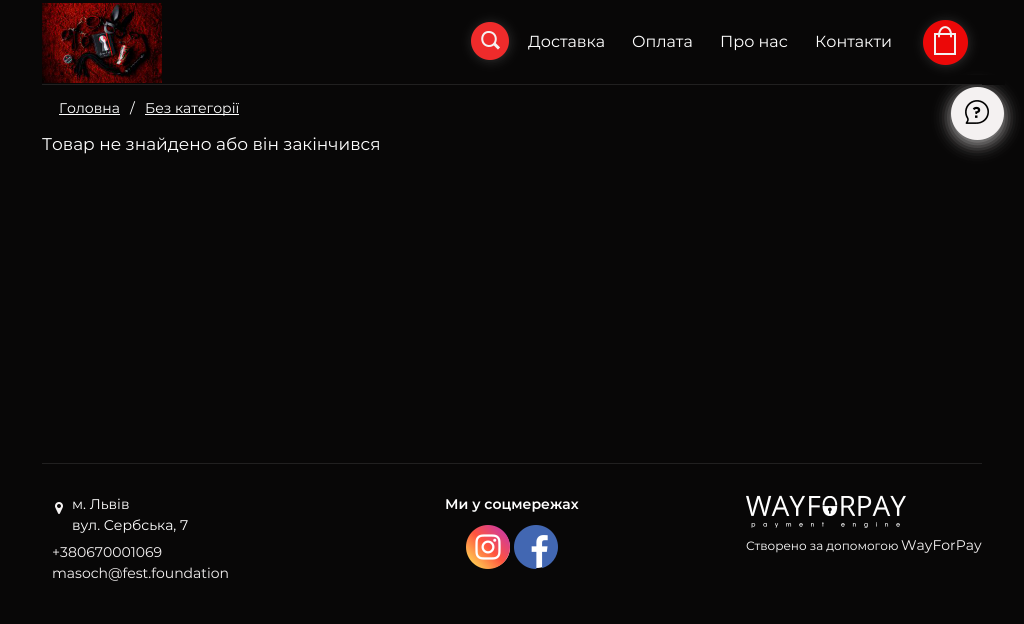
#include <cairo.h>
#include <math.h>
#include <stddef.h>


static void set_color(cairo_t *cr, unsigned color) {
    cairo_set_source_rgb(cr, (color >> 16) / 255.0, (color >> 8 & 255) / 255.0, (color & 255) / 255.0);
}

static void draw_text(cairo_t *cr, double x, double y, const char *s, const char *family, double size, int italic, int bold, unsigned color) {
    cairo_select_font_face(cr, family, italic ? CAIRO_FONT_SLANT_ITALIC : CAIRO_FONT_SLANT_NORMAL,
        bold ? CAIRO_FONT_WEIGHT_BOLD : CAIRO_FONT_WEIGHT_NORMAL);
    cairo_set_font_size(cr, size);
    set_color(cr, color);
    cairo_move_to(cr, x, y);
    cairo_show_text(cr, s);
}

static void fill_rect(cairo_t *cr, double x, double y, double w, double h, unsigned color) {
    set_color(cr, color);
    cairo_rectangle(cr, x, y, w, h);
    cairo_fill(cr);
}

static void rounded_rect(cairo_t *cr, double x, double y, double w, double h, double r) {
    cairo_new_sub_path(cr);
    cairo_arc(cr, x + w - r, y + h - r, r, 0, M_PI / 2);
    cairo_arc(cr, x + r, y + h - r, r, M_PI / 2, M_PI);
    cairo_arc(cr, x + r, y + r, r, M_PI, 1.5 * M_PI);
    cairo_arc(cr, x + w - r, y + r, r, 1.5 * M_PI, 2 * M_PI);
    cairo_close_path(cr);
}

static void draw_shadow(cairo_t *cr, double x, double y, double w, double h, double r, double blur, double alpha) {
    cairo_push_group_with_content(cr, CAIRO_CONTENT_ALPHA);
    cairo_set_operator(cr, CAIRO_OPERATOR_SOURCE);
    for (int i = 15; i >= -15 && fmin(w, h) + blur * i / 3 > 0; i -= 2) {
        double e = blur * i / 6;
        cairo_set_source_rgba(cr, 0, 0, 0, alpha * erfc((i - 1) / 8.5) / 2);
        rounded_rect(cr, x - e, y - e, w + 2 * e, h + 2 * e, fmax(0, fmin(r + e + blur * .6, fmin(w, h) / 2 + e)));
        cairo_fill(cr);
    }
    cairo_pattern_t *soft = cairo_pop_group(cr);
    cairo_mask(cr, soft);
    cairo_pattern_destroy(soft);
}

static void draw_image(cairo_t *cr, const char *path, double x, double y, double w, double h) {
    cairo_surface_t *image = cairo_image_surface_create_from_png(path);
    cairo_save(cr);
    cairo_set_source_surface(cr, image, x, y);
    cairo_rectangle(cr, x, y, w, h);
    cairo_fill(cr);
    cairo_restore(cr);
    cairo_surface_destroy(image);
}

int main(void) {
    cairo_surface_t *surface = cairo_image_surface_create(CAIRO_FORMAT_RGB24, 1024, 624);
    cairo_t *cr = cairo_create(surface);
    cairo_font_options_t *options = cairo_font_options_create();
    cairo_font_options_set_hint_metrics(options, CAIRO_HINT_METRICS_OFF);
    cairo_font_options_set_hint_style(options, CAIRO_HINT_STYLE_NONE);
    cairo_set_font_options(cr, options);
    cairo_set_miter_limit(cr, 4);
    set_color(cr, 0x080707);
    cairo_paint(cr);
    set_color(cr, 0xF4F1F1);
    draw_shadow(cr, 951, 91, 53, 53, 26.5, 8, 0.7);
    fill_rect(cr, 950, 75, 55, 10, 0x080707);
    fill_rect(cr, 42, 84, 940, 1, 0x212020);
    draw_image(cr, "assets/img1.png", 42, 3, 120, 80);
    set_color(cr, 0x808080);
    draw_shadow(cr, 472, 23, 38, 38, 19, 5, 0.3);
    set_color(cr, 0xEF2B2B);
    cairo_arc(cr, 490, 41, 19, 0, 2 * M_PI);
    cairo_fill(cr);
    cairo_new_path(cr);
    cairo_move_to(cr, 489.5, 32);
    cairo_curve_to(cr, 498.5, 33, 497.5, 46.5, 488.5, 46);
    cairo_curve_to(cr, 479.5, 45, 480.5, 31, 489.5, 32);
    cairo_close_path(cr);
    set_color(cr, 0xF4F1F1);
    cairo_stroke(cr);
    cairo_new_path(cr);
    cairo_move_to(cr, 494, 43.5);
    cairo_line_to(cr, 499, 48.5);
    cairo_set_line_width(cr, 3);
    cairo_stroke(cr);
    draw_text(cr, 528, 47, "Доставка", "Montserrat", 16, 0, 0, 0xFFFFFF);
    draw_text(cr, 632, 47, "Оплата", "Montserrat", 16, 0, 0, 0xFFFFFF);
    draw_text(cr, 720, 47, "Про нас", "Montserrat", 16, 0, 0, 0xFFFFFF);
    draw_text(cr, 815, 47, "Контакти", "Montserrat", 16, 0, 0, 0xFFFFFF);
    set_color(cr, 0x808080);
    draw_shadow(cr, 924, 21, 45, 45, 22.5, 5, 0.3);
    set_color(cr, 0xEC0808);
    cairo_arc(cr, 945.5, 42.5, 22.5, 0, 2 * M_PI);
    cairo_fill(cr);
    cairo_rectangle(cr, 935, 34, 20, 20);
    set_color(cr, 0xF4F1F1);
    cairo_set_line_width(cr, 2);
    cairo_stroke(cr);
    cairo_new_path(cr);
    cairo_move_to(cr, 951, 36.5);
    cairo_curve_to(cr, 952, 24, 938.5, 24, 939, 36.5);
    cairo_set_line_cap(cr, CAIRO_LINE_CAP_ROUND);
    cairo_stroke(cr);
    draw_text(cr, 59, 113, "Головна", "Montserrat", 14, 0, 0, 0xFFFFFF);
    fill_rect(cr, 59, 114, 61, 1, 0xFFFFFF);
    draw_text(cr, 130, 113, "/", "Montserrat", 14, 0, 0, 0xFFFFFF);
    fill_rect(cr, 145, 114, 94, 1, 0xFFFFFF);
    draw_text(cr, 145, 113, "Без категорії", "Montserrat", 14, 0, 0, 0xFFFFFF);
    set_color(cr, 0xF4F1F1);
    cairo_new_path(cr);
    cairo_arc(cr, 977.5, 113.5, 26.5, 0, 2 * M_PI);
    cairo_fill(cr);
    draw_image(cr, "assets/img2.png", 965, 100, 24, 24);
    draw_text(cr, 42, 150, "Товар не знайдено або він закінчився", "Montserrat", 17, 0, 0, 0xFFFFFF);
    fill_rect(cr, 42, 463, 940, 1, 0x212020);
    draw_image(cr, "assets/img3.png", 55, 502, 8, 12);
    draw_text(cr, 72, 509, "м. Львів", "Montserrat", 14, 0, 0, 0xFFFFFF);
    draw_text(cr, 72, 530, "вул. Сербська, 7", "Montserrat", 14, 0, 0, 0xFFFFFF);
    draw_text(cr, 52, 557, "+380670001069", "Montserrat", 14, 0, 0, 0xF4F1F1);
    draw_text(cr, 52, 578, "masoch@fest.foundation", "Montserrat", 14, 0, 0, 0xF4F1F1);
    draw_text(cr, 445, 509, "Ми у соцмережах", "Montserrat SemiBold", 14, 0, 0, 0xFFFFFF);
    draw_image(cr, "assets/img4.png", 466, 525, 44, 44);
    draw_image(cr, "assets/img5.png", 514, 525, 44, 44);
    draw_image(cr, "assets/img6.png", 746, 495, 160, 33);
    draw_text(cr, 746, 550, "Створено за допомогою", "Montserrat", 12, 0, 0, 0xFFFFFF);
    draw_text(cr, 901, 550, "WayForPay", "Montserrat", 14, 0, 0, 0xF4F1F1);
    cairo_surface_write_to_png(surface, "output.png");
    cairo_font_options_destroy(options);
    cairo_destroy(cr);
    cairo_surface_destroy(surface);
    return 0;
}
